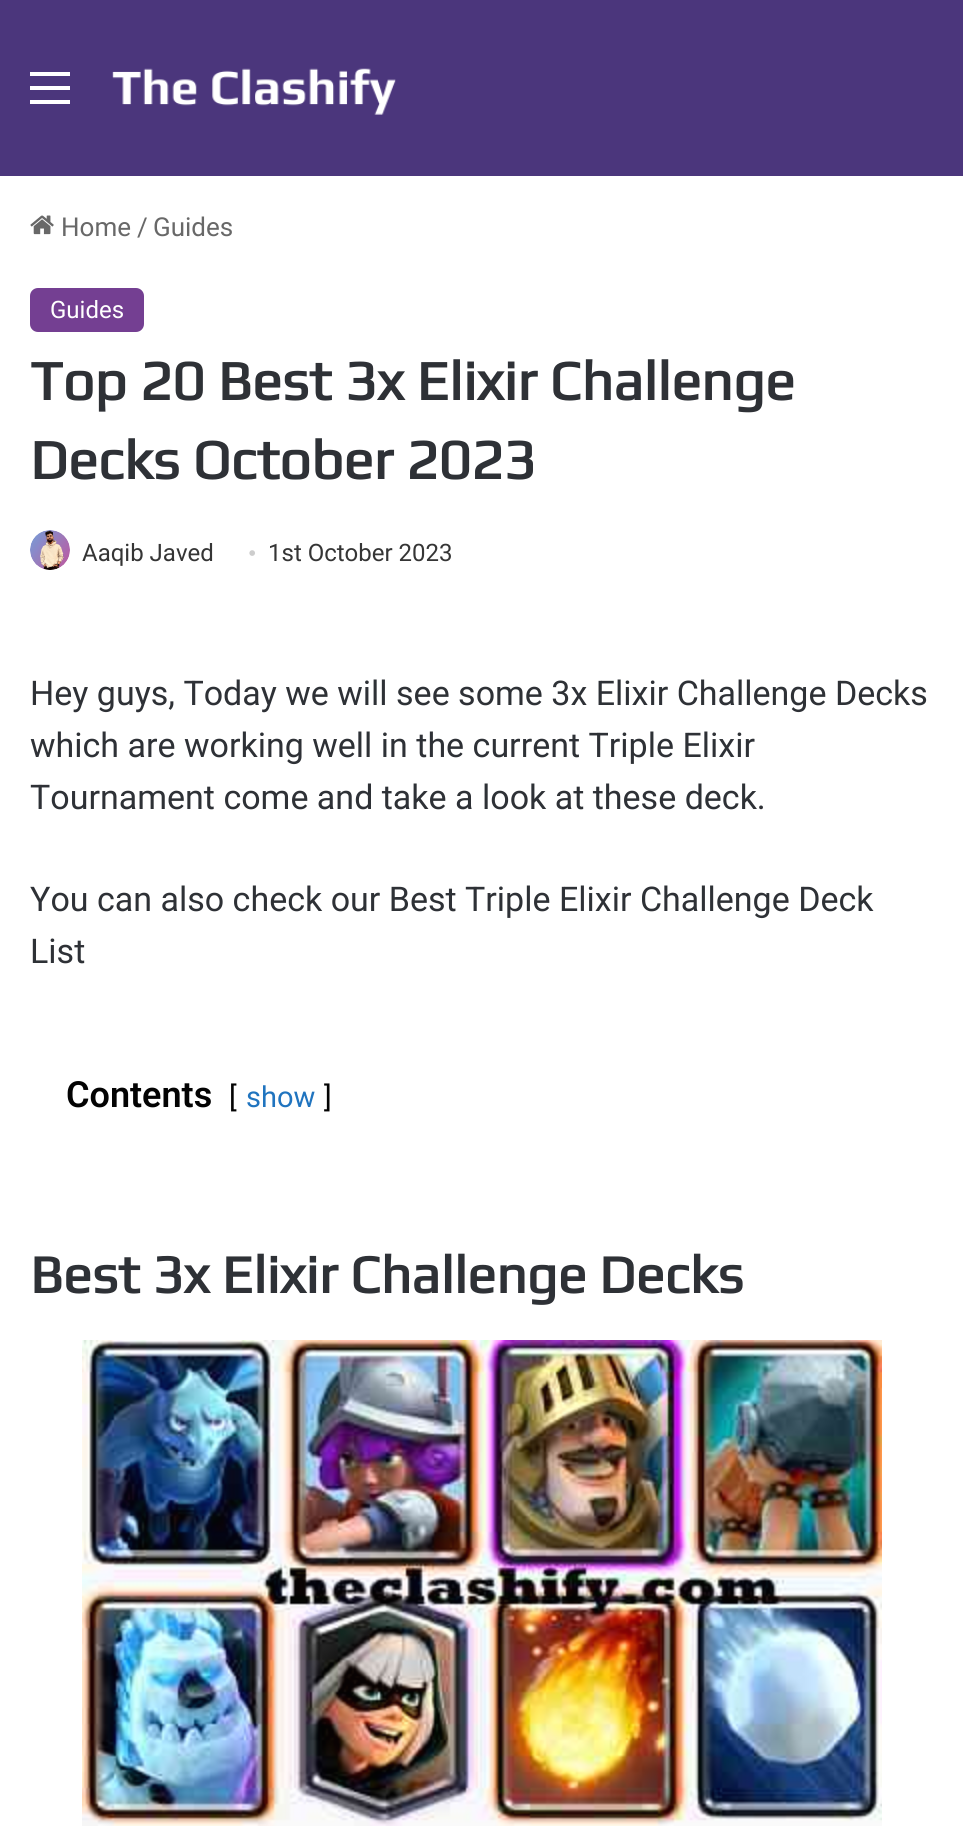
#include <cairo.h>
#include <math.h>
#include <stddef.h>


static void set_color(cairo_t *cr, unsigned color) {
    cairo_set_source_rgb(cr, (color >> 16) / 255.0, (color >> 8 & 255) / 255.0, (color & 255) / 255.0);
}

static void draw_text(cairo_t *cr, double x, double y, const char *s, const char *family, double size, int italic, int bold, unsigned color) {
    cairo_select_font_face(cr, family, italic ? CAIRO_FONT_SLANT_ITALIC : CAIRO_FONT_SLANT_NORMAL,
        bold ? CAIRO_FONT_WEIGHT_BOLD : CAIRO_FONT_WEIGHT_NORMAL);
    cairo_set_font_size(cr, size);
    set_color(cr, color);
    cairo_move_to(cr, x, y);
    cairo_show_text(cr, s);
}

static void fill_rect(cairo_t *cr, double x, double y, double w, double h, unsigned color) {
    set_color(cr, color);
    cairo_rectangle(cr, x, y, w, h);
    cairo_fill(cr);
}

static void rounded_rect(cairo_t *cr, double x, double y, double w, double h, double r) {
    cairo_new_sub_path(cr);
    cairo_arc(cr, x + w - r, y + h - r, r, 0, M_PI / 2);
    cairo_arc(cr, x + r, y + h - r, r, M_PI / 2, M_PI);
    cairo_arc(cr, x + r, y + r, r, M_PI, 1.5 * M_PI);
    cairo_arc(cr, x + w - r, y + r, r, 1.5 * M_PI, 2 * M_PI);
    cairo_close_path(cr);
}

static void draw_image(cairo_t *cr, const char *path, double x, double y, double w, double h) {
    cairo_surface_t *image = cairo_image_surface_create_from_png(path);
    cairo_save(cr);
    cairo_set_source_surface(cr, image, x, y);
    cairo_rectangle(cr, x, y, w, h);
    cairo_fill(cr);
    cairo_restore(cr);
    cairo_surface_destroy(image);
}

int main(void) {
    cairo_surface_t *surface = cairo_image_surface_create(CAIRO_FORMAT_RGB24, 963, 1831);
    cairo_t *cr = cairo_create(surface);
    cairo_font_options_t *options = cairo_font_options_create();
    cairo_font_options_set_hint_metrics(options, CAIRO_HINT_METRICS_OFF);
    cairo_font_options_set_hint_style(options, CAIRO_HINT_STYLE_NONE);
    cairo_set_font_options(cr, options);
    cairo_set_miter_limit(cr, 4);
    set_color(cr, 0xFFFFFF);
    cairo_paint(cr);
    fill_rect(cr, 0, 0, 963, 176, 0x4B367C);
    fill_rect(cr, 30, 86, 40, 4, 0xFFFFFF);
    fill_rect(cr, 30, 72, 40, 4, 0xFFFFFF);
    fill_rect(cr, 30, 100, 40, 4, 0xFFFFFF);
    draw_image(cr, "assets/img1.png", 112, 68, 284, 47);
    draw_image(cr, "assets/img2.png", 30, 215, 24, 20);
    draw_text(cr, 61, 236, "Home", "Roboto", 26, 0, 0, 0x686868);
    draw_text(cr, 137, 236, "/", "Roboto", 26, 0, 0, 0x686868);
    draw_text(cr, 153, 236, "Guides", "Roboto", 26, 0, 0, 0x686868);
    set_color(cr, 0x743F92);
    rounded_rect(cr, 30, 288, 114, 44, 8);
    cairo_fill(cr);
    draw_text(cr, 50, 318, "Guides", "Roboto", 24, 0, 0, 0xFFFFFF);
    draw_text(cr, 30, 400, "Top 20 Best 3x Elixir Challenge", "Play", 56, 0, 1, 0x2E3136);
    draw_text(cr, 30, 479, "Decks October 2023", "Play", 56, 0, 1, 0x2E3136);
    draw_image(cr, "assets/img3.png", 30, 530, 40, 40);
    draw_text(cr, 82, 561, "Aaqib Javed", "Roboto", 24, 0, 0, 0x353535);
    draw_text(cr, 248, 561, "•", "Liberation Serif", 24, 0, 0, 0xCDCDCD);
    draw_text(cr, 268, 561, "1st October 2023", "Roboto", 24, 0, 0, 0x353535);
    draw_text(cr, 30, 705, "Hey guys, Today we will see some 3x Elixir Challenge Decks", "Roboto", 34, 0, 0, 0x2E3136);
    draw_text(cr, 30, 757, "which are working well in the current Triple Elixir", "Roboto", 34, 0, 0, 0x2E3136);
    draw_text(cr, 30, 809, "Tournament come and take a look at these deck.", "Roboto", 34, 0, 0, 0x2E3136);
    draw_text(cr, 30, 911, "You can also check our Best Triple Elixir Challenge Deck", "Roboto", 34, 0, 0, 0x2E3136);
    draw_text(cr, 30, 963, "List", "Roboto", 34, 0, 0, 0x2E3136);
    draw_text(cr, 66, 1107, "Contents", "Roboto SemiBold", 36, 0, 0, 0x030303);
    draw_text(cr, 229, 1107, "[", "Roboto", 29, 0, 0, 0x030303);
    draw_text(cr, 246, 1107, "show", "Roboto", 29, 0, 0, 0x2074BF);
    draw_text(cr, 324, 1107, "]", "Roboto", 29, 0, 0, 0x030303);
    draw_text(cr, 30, 1293, "Best 3x Elixir Challenge Decks", "Play", 54, 0, 1, 0x2E3136);
    draw_image(cr, "assets/img4.png", 82, 1340, 800, 486);
    cairo_surface_write_to_png(surface, "output.png");
    cairo_font_options_destroy(options);
    cairo_destroy(cr);
    cairo_surface_destroy(surface);
    return 0;
}
